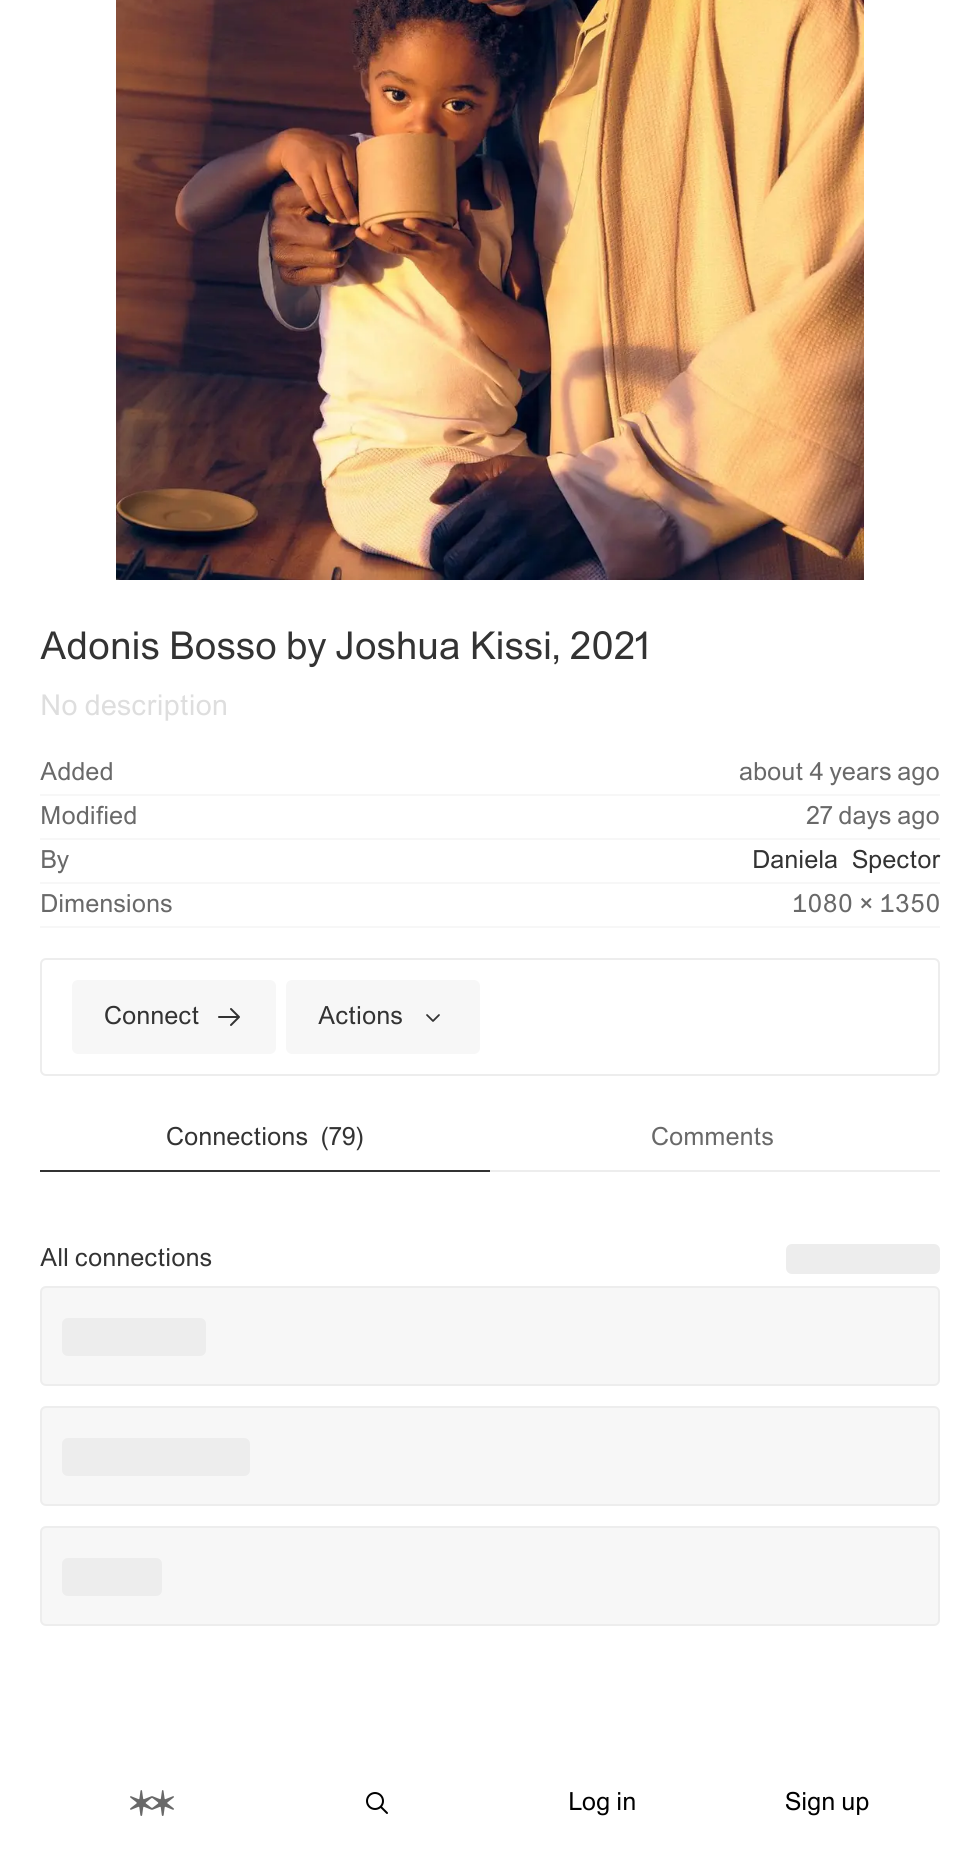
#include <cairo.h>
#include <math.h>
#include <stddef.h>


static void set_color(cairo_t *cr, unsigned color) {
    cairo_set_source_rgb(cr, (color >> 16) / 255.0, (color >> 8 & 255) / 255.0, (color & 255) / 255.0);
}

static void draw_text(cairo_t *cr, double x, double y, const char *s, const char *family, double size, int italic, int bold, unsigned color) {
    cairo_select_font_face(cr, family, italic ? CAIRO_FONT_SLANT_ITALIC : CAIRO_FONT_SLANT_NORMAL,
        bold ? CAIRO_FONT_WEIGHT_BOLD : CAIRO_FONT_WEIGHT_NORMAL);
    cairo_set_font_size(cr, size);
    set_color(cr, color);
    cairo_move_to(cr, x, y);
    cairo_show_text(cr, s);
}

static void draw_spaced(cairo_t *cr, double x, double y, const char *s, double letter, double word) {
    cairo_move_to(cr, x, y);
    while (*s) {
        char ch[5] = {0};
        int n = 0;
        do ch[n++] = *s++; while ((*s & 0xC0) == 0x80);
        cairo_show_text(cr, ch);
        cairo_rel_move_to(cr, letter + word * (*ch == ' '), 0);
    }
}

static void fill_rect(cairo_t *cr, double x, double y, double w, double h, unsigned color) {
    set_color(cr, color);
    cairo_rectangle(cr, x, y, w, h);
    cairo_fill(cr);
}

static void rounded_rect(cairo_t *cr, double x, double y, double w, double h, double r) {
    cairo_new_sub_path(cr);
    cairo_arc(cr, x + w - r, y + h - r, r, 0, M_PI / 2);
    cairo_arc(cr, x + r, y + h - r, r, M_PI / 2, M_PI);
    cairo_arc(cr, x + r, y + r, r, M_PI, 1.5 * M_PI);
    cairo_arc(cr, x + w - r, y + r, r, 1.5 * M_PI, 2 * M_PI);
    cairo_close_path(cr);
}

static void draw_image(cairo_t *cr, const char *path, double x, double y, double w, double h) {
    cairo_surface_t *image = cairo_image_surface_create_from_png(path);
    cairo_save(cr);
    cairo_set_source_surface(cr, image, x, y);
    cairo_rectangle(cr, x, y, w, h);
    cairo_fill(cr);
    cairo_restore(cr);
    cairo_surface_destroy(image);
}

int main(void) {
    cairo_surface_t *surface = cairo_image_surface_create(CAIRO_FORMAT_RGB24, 979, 1870);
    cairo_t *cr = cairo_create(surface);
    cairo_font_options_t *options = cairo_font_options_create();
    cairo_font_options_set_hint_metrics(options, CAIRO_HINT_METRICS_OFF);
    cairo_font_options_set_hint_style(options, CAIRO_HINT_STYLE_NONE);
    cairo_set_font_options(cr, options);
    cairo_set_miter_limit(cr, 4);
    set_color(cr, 0xFFFFFF);
    cairo_paint(cr);
    draw_image(cr, "assets/img1.png", 116, 0, 748, 580);
    draw_text(cr, 40, 659, "Adonis Bosso by Joshua Kissi, 2021", "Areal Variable", 38.4, 0, 0, 0x333333);
    draw_text(cr, 40, 715, "No description", "Areal Variable", 28.75, 0, 0, 0xDEDEDE);
    fill_rect(cr, 40, 794, 900, 2, 0xF7F7F7);
    draw_text(cr, 40, 780, "Added", "Areal Variable", 25, 0, 0, 0x696969);
    draw_text(cr, 739, 780, "about 4 years ago", "Areal Variable", 25, 0, 0, 0x696969);
    fill_rect(cr, 40, 838, 900, 2, 0xF7F7F7);
    draw_text(cr, 40, 824, "Modified", "Areal Variable", 25, 0, 0, 0x696969);
    draw_text(cr, 806, 824, "27 days ago", "Areal Variable", 25, 0, 0, 0x696969);
    fill_rect(cr, 40, 882, 900, 2, 0xF7F7F7);
    draw_text(cr, 40, 868, "By", "Areal Variable", 25, 0, 0, 0x696969);
    set_color(cr, 0x333333);
    draw_spaced(cr, 752, 868, "Daniela Spector", 0, 8);
    fill_rect(cr, 40, 926, 900, 2, 0xF7F7F7);
    draw_text(cr, 40, 912, "Dimensions", "Areal Variable", 25, 0, 0, 0x696969);
    draw_text(cr, 792, 912, "1080 × 1350", "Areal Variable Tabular", 25, 0, 0, 0x696969);
    rounded_rect(cr, 41, 959, 898, 116, 5);
    set_color(cr, 0xEDEDED);
    cairo_stroke(cr);
    set_color(cr, 0xF7F7F7);
    rounded_rect(cr, 72, 980, 204, 74, 6);
    cairo_fill(cr);
    draw_text(cr, 104, 1024, "Connect", "Areal Variable", 25, 0, 0, 0x333333);
    draw_image(cr, "assets/img2.png", 218, 1008, 22, 18);
    set_color(cr, 0xF7F7F7);
    rounded_rect(cr, 286, 980, 194, 74, 6);
    cairo_fill(cr);
    draw_text(cr, 318, 1024, "Actions", "Areal Variable", 25, 0, 0, 0x333333);
    draw_image(cr, "assets/img3.png", 426, 1014, 14, 8);
    fill_rect(cr, 40, 1170, 450, 2, 0x333333);
    draw_text(cr, 166, 1145, "Connections", "Areal Variable", 25, 0, 0, 0x333333);
    draw_text(cr, 321, 1145, "(", "Areal Variable", 25, 0, 0, 0x333333);
    draw_text(cr, 329, 1145, "79", "Areal Variable", 25, 0, 0, 0x333333);
    draw_text(cr, 356, 1145, ")", "Areal Variable", 25, 0, 0, 0x333333);
    fill_rect(cr, 490, 1170, 450, 2, 0xEDEDED);
    draw_text(cr, 651, 1145, "Comments", "Areal Variable", 25, 0, 0, 0x696969);
    draw_text(cr, 40, 1266, "All connections", "Areal Variable", 25, 0, 0, 0x333333);
    set_color(cr, 0xEDEDED);
    rounded_rect(cr, 786, 1244, 154, 30, 6);
    cairo_fill(cr);
    set_color(cr, 0xF7F7F7);
    rounded_rect(cr, 41, 1287, 898, 98, 5);
    cairo_fill_preserve(cr);
    set_color(cr, 0xEDEDED);
    cairo_stroke(cr);
    rounded_rect(cr, 62, 1318, 144, 38, 6);
    cairo_fill(cr);
    set_color(cr, 0xF7F7F7);
    rounded_rect(cr, 41, 1407, 898, 98, 5);
    cairo_fill_preserve(cr);
    set_color(cr, 0xEDEDED);
    cairo_stroke(cr);
    rounded_rect(cr, 62, 1438, 188, 38, 6);
    cairo_fill(cr);
    set_color(cr, 0xF7F7F7);
    rounded_rect(cr, 41, 1527, 898, 98, 5);
    cairo_fill_preserve(cr);
    set_color(cr, 0xEDEDED);
    cairo_stroke(cr);
    rounded_rect(cr, 62, 1558, 100, 38, 6);
    cairo_fill(cr);
    draw_image(cr, "assets/img4.png", 130, 1790, 44, 26);
    draw_image(cr, "assets/img5.png", 366, 1792, 22, 22);
    draw_text(cr, 568, 1810, "Log in", "Areal Variable", 25, 0, 0, 0x000000);
    draw_text(cr, 785, 1810, "Sign up", "Areal Variable", 25, 0, 0, 0x000000);
    cairo_surface_write_to_png(surface, "output.png");
    cairo_font_options_destroy(options);
    cairo_destroy(cr);
    cairo_surface_destroy(surface);
    return 0;
}
